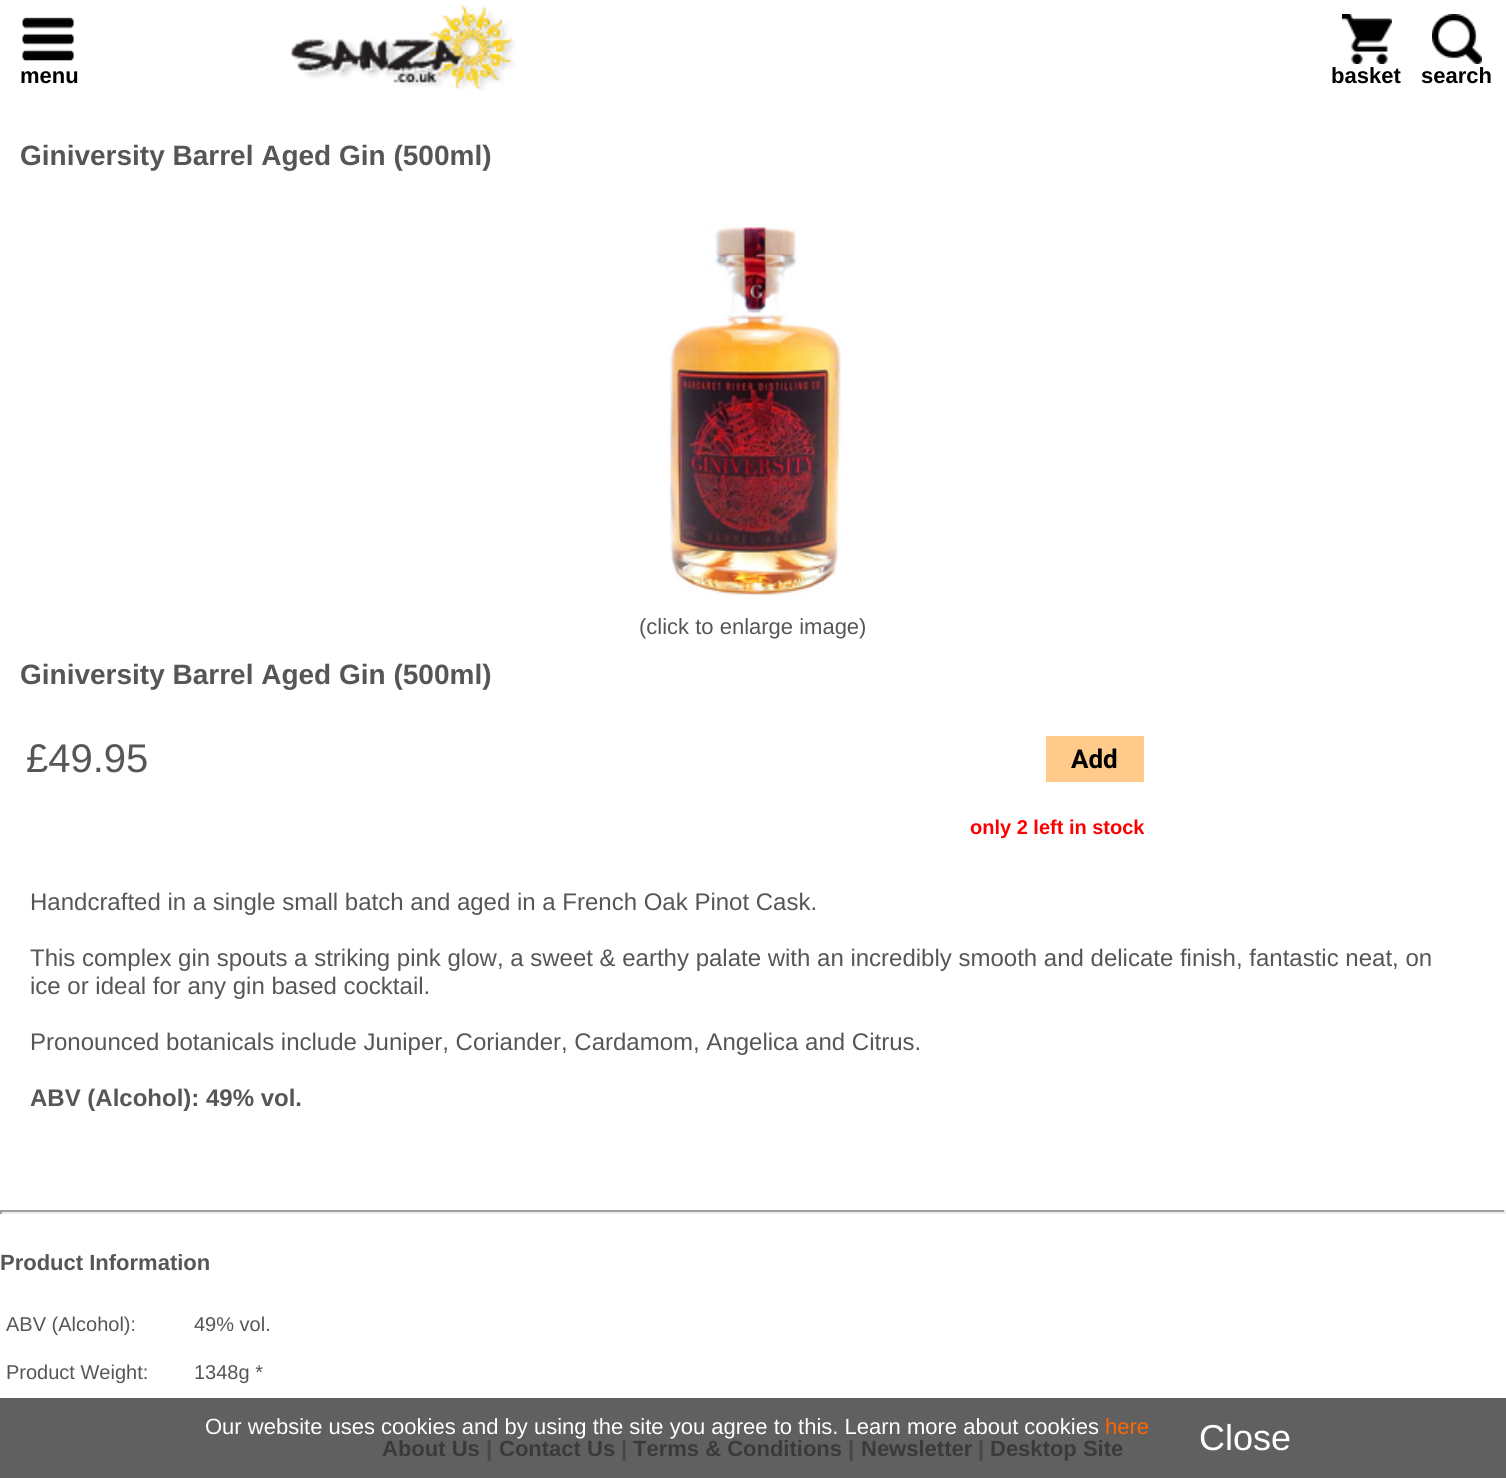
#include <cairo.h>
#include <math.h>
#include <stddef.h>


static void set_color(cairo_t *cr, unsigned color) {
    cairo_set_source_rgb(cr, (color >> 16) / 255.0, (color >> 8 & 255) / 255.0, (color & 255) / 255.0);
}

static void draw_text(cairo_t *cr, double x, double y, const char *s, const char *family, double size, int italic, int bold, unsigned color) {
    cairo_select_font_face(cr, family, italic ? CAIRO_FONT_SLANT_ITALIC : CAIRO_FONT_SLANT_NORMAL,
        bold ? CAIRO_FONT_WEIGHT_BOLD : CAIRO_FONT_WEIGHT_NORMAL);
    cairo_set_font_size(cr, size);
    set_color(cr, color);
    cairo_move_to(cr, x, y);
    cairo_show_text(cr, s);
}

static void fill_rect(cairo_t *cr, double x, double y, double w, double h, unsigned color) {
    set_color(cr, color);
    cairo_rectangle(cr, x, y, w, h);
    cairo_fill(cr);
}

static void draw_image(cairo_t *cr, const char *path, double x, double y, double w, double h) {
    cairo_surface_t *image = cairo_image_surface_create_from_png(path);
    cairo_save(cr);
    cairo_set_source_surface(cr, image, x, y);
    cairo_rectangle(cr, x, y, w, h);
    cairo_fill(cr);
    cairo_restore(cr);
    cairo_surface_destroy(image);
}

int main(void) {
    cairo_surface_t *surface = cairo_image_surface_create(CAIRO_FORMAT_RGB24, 1506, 1478);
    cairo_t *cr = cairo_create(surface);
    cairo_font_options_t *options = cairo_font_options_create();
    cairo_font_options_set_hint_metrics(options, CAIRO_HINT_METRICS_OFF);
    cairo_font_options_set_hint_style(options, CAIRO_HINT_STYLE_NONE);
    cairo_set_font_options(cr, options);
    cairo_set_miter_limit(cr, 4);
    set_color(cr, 0xFFFFFF);
    cairo_paint(cr);
    fill_rect(cr, 0, 1398, 1506, 80, 0x606060);
    draw_image(cr, "assets/img1.png", 22, 17, 53, 45);
    draw_text(cr, 20, 83, "menu", "Liberation Sans", 22, 0, 1, 0x000000);
    draw_image(cr, "assets/img2.png", 290, 5, 226, 86);
    draw_image(cr, "assets/img3.png", 1342, 14, 50, 50);
    draw_text(cr, 1331, 83, "basket", "Liberation Sans", 22, 0, 1, 0x000000);
    draw_image(cr, "assets/img4.png", 1432, 14, 50, 50);
    draw_text(cr, 1421, 83, "search", "Liberation Sans", 22, 0, 1, 0x000000);
    draw_text(cr, 20, 165, "Giniversity Barrel Aged Gin (500ml)", "Liberation Sans", 28, 0, 1, 0x565656);
    draw_image(cr, "assets/img5.png", 669, 224, 174, 372);
    draw_text(cr, 639, 634, "(click to enlarge image)", "Liberation Sans", 22, 0, 0, 0x565656);
    draw_text(cr, 20, 684, "Giniversity Barrel Aged Gin (500ml)", "Liberation Sans", 28, 0, 1, 0x565656);
    draw_text(cr, 26, 772, "£49.95", "Liberation Sans", 40, 0, 0, 0x565656);
    fill_rect(cr, 1046, 736, 98, 46, 0xFFCA8A);
    draw_text(cr, 1071, 768, "Add", "Roboto", 26, 0, 1, 0x000000);
    draw_text(cr, 970, 834, "only 2 left in stock", "Liberation Sans", 20, 0, 1, 0xFF0000);
    draw_text(cr, 30, 910, "Handcrafted in a single small batch and aged in a French Oak Pinot Cask.", "Liberation Sans", 24, 0, 0, 0x565656);
    draw_text(cr, 30, 966, "This complex gin spouts a striking pink glow, a sweet & earthy palate with an incredibly smooth and delicate finish, fantastic neat, on", "Liberation Sans", 24, 0, 0, 0x565656);
    draw_text(cr, 30, 994, "ice or ideal for any gin based cocktail.", "Liberation Sans", 24, 0, 0, 0x565656);
    draw_text(cr, 30, 1050, "Pronounced botanicals include Juniper, Coriander, Cardamom, Angelica and Citrus.", "Liberation Sans", 24, 0, 0, 0x565656);
    draw_text(cr, 30, 1106, "ABV (Alcohol): 49% vol.", "Liberation Sans", 24, 0, 1, 0x565656);
    fill_rect(cr, 0, 1210, 1506, 2, 0x9F9F9F);
    fill_rect(cr, 1504, 1210, 2, 4, 0xEEEEEE);
    fill_rect(cr, 0, 1212, 1506, 2, 0xEEEEEE);
    fill_rect(cr, 0, 1210, 2, 4, 0x9F9F9F);
    draw_text(cr, 0, 1270, "Product Information", "Liberation Sans", 22, 0, 1, 0x565656);
    draw_text(cr, 6, 1331, "ABV (Alcohol):", "Liberation Sans", 20, 0, 0, 0x565656);
    draw_text(cr, 194, 1331, "49% vol.", "Liberation Sans", 20, 0, 0, 0x565656);
    draw_text(cr, 6, 1379, "Product Weight:", "Liberation Sans", 20, 0, 0, 0x565656);
    draw_text(cr, 194, 1379, "1348g *", "Liberation Sans", 20, 0, 0, 0x565656);
    draw_text(cr, 382, 1456, "About Us", "Liberation Sans", 22, 0, 1, 0x3A3A3A);
    draw_text(cr, 486, 1456, "|", "Liberation Sans", 22, 0, 1, 0x474747);
    draw_text(cr, 499, 1456, "Contact Us", "Liberation Sans", 22, 0, 1, 0x3A3A3A);
    draw_text(cr, 621, 1456, "|", "Liberation Sans", 22, 0, 1, 0x474747);
    draw_text(cr, 633, 1456, "Terms & Conditions", "Liberation Sans", 22, 0, 1, 0x3A3A3A);
    draw_text(cr, 848, 1456, "|", "Liberation Sans", 22, 0, 1, 0x474747);
    draw_text(cr, 861, 1456, "Newsletter", "Liberation Sans", 22, 0, 1, 0x3A3A3A);
    draw_text(cr, 978, 1456, "|", "Liberation Sans", 22, 0, 1, 0x474747);
    draw_text(cr, 990, 1456, "Desktop Site", "Liberation Sans", 22, 0, 1, 0x3A3A3A);
    draw_text(cr, 205, 1434, "Our website uses cookies and by using the site you agree to this. Learn more about cookies", "Liberation Sans", 22, 0, 0, 0xFFFFFF);
    draw_text(cr, 1105, 1434, "here", "Liberation Sans", 22, 0, 0, 0xFF6600);
    draw_text(cr, 1199, 1450, "Close", "Liberation Sans", 36, 0, 0, 0xFFFFFF);
    cairo_surface_write_to_png(surface, "output.png");
    cairo_font_options_destroy(options);
    cairo_destroy(cr);
    cairo_surface_destroy(surface);
    return 0;
}
